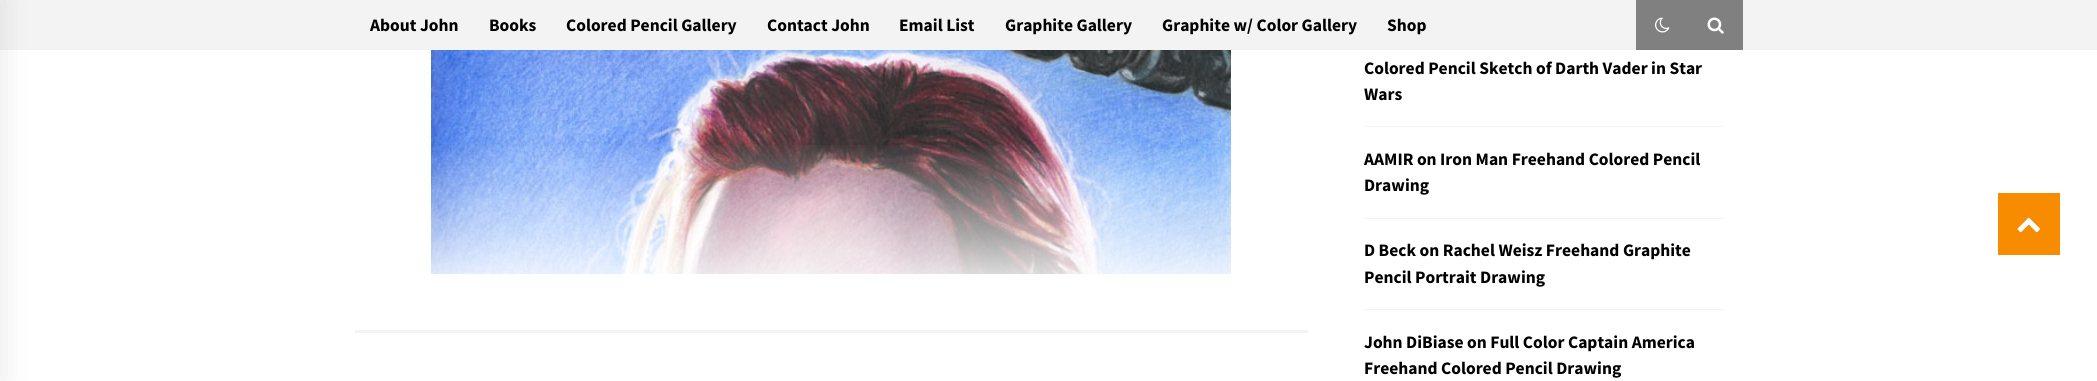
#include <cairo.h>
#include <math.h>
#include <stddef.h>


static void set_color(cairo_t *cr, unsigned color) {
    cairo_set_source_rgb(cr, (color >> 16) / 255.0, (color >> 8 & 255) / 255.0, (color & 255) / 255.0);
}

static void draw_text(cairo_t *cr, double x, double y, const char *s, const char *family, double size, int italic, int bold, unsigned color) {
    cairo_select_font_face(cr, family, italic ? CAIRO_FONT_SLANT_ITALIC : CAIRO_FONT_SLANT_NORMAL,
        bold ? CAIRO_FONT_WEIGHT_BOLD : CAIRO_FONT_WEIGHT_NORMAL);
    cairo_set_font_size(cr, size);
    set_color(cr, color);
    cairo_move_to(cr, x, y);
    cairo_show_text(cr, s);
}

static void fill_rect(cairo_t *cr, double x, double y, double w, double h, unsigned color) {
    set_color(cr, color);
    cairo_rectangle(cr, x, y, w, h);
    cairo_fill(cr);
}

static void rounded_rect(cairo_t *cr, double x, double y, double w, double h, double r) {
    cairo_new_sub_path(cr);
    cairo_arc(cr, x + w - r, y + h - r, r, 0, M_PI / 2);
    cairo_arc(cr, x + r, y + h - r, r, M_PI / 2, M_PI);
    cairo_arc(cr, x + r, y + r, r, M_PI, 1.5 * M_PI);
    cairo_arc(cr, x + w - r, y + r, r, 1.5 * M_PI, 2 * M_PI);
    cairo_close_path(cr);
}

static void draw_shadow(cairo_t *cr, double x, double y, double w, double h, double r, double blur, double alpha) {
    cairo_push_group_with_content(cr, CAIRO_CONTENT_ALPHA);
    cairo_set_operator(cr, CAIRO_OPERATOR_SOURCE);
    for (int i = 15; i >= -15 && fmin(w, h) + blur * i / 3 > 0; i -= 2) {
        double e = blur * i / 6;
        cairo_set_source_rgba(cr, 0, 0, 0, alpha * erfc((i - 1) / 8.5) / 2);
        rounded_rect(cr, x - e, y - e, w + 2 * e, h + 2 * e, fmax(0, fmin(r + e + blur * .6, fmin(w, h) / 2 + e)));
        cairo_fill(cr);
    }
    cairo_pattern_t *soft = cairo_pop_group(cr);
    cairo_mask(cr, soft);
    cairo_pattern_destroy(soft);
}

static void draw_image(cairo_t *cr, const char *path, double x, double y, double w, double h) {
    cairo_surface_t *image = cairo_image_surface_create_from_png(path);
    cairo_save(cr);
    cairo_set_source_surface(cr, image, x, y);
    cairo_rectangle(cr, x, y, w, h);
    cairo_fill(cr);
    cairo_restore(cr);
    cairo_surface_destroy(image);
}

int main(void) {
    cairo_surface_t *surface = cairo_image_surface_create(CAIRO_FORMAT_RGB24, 2097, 381);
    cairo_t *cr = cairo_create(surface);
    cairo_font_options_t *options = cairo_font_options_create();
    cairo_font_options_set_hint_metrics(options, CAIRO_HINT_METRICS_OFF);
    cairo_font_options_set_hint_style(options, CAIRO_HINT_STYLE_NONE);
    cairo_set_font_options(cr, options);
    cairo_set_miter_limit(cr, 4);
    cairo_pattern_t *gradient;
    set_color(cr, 0xFFFFFF);
    cairo_paint(cr);
    fill_rect(cr, 0, 0, 2097, 50, 0xF3F3F3);
    set_color(cr, 0x000000);
    draw_shadow(cr, -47, 0, 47, 381, 0, 15.5, 0.1);
    draw_text(cr, 370, 31, "About John", "Source Sans Pro", 17.5, 0, 1, 0x000000);
    draw_text(cr, 489, 31, "Books", "Source Sans Pro", 17.5, 0, 1, 0x000000);
    draw_text(cr, 566, 31, "Colored Pencil Gallery", "Source Sans Pro", 17.5, 0, 1, 0x000000);
    draw_text(cr, 767, 31, "Contact John", "Source Sans Pro", 17.5, 0, 1, 0x000000);
    draw_text(cr, 899, 31, "Email List", "Source Sans Pro", 17.5, 0, 1, 0x000000);
    draw_text(cr, 1005, 31, "Graphite Gallery", "Source Sans Pro", 17.5, 0, 1, 0x000000);
    draw_text(cr, 1162, 31, "Graphite w/ Color Gallery", "Source Sans Pro", 17.5, 0, 1, 0x000000);
    draw_text(cr, 1387, 31, "Shop", "Source Sans Pro", 17.5, 0, 1, 0x000000);
    fill_rect(cr, 1636, 0, 107, 50, 0x808080);
    draw_image(cr, "assets/img1.png", 1655, 17, 15, 16);
    draw_image(cr, "assets/img2.png", 1707, 17, 17, 17);
    fill_rect(cr, 355, 330, 953, 3, 0xF3F3F3);
    draw_image(cr, "assets/img3.png", 431, 50, 800, 224);
    gradient = cairo_pattern_create_linear(831, 142, 831, 330);
    cairo_pattern_add_color_stop_rgba(gradient, 0, 1, 1, 1, 0);
    cairo_pattern_add_color_stop_rgba(gradient, 0.86, 1, 1, 1, 1);
    cairo_pattern_add_color_stop_rgba(gradient, 1, 1, 1, 1, 1);
    cairo_set_source(cr, gradient);
    cairo_pattern_destroy(gradient);
    cairo_rectangle(cr, 431, 145, 800, 129);
    cairo_fill(cr);
    fill_rect(cr, 1364, 126, 360, 1, 0xF3F3F3);
    draw_text(cr, 1364, 74, "Colored Pencil Sketch of Darth Vader in Star", "Source Sans Pro", 17.5, 0, 1, 0x000000);
    draw_text(cr, 1364, 100, "Wars", "Source Sans Pro", 17.5, 0, 1, 0x000000);
    fill_rect(cr, 1364, 218, 360, 1, 0xF3F3F3);
    draw_text(cr, 1364, 165, "AAMIR on Iron Man Freehand Colored Pencil", "Source Sans Pro", 17.5, 0, 1, 0x000000);
    draw_text(cr, 1364, 191, "Drawing", "Source Sans Pro", 17.5, 0, 1, 0x000000);
    fill_rect(cr, 1364, 309, 360, 1, 0xF3F3F3);
    draw_text(cr, 1364, 256, "D Beck on Rachel Weisz Freehand Graphite", "Source Sans Pro", 17.5, 0, 1, 0x000000);
    draw_text(cr, 1364, 283, "Pencil Portrait Drawing", "Source Sans Pro", 17.5, 0, 1, 0x000000);
    draw_text(cr, 1364, 348, "John DiBiase on Full Color Captain America", "Source Sans Pro", 17.5, 0, 1, 0x000000);
    draw_text(cr, 1364, 374, "Freehand Colored Pencil Drawing", "Source Sans Pro", 17.5, 0, 1, 0x000000);
    fill_rect(cr, 1998, 193, 62, 62, 0xF88C00);
    draw_image(cr, "assets/img4.png", 2017, 217, 23, 16);
    cairo_surface_write_to_png(surface, "output.png");
    cairo_font_options_destroy(options);
    cairo_destroy(cr);
    cairo_surface_destroy(surface);
    return 0;
}
